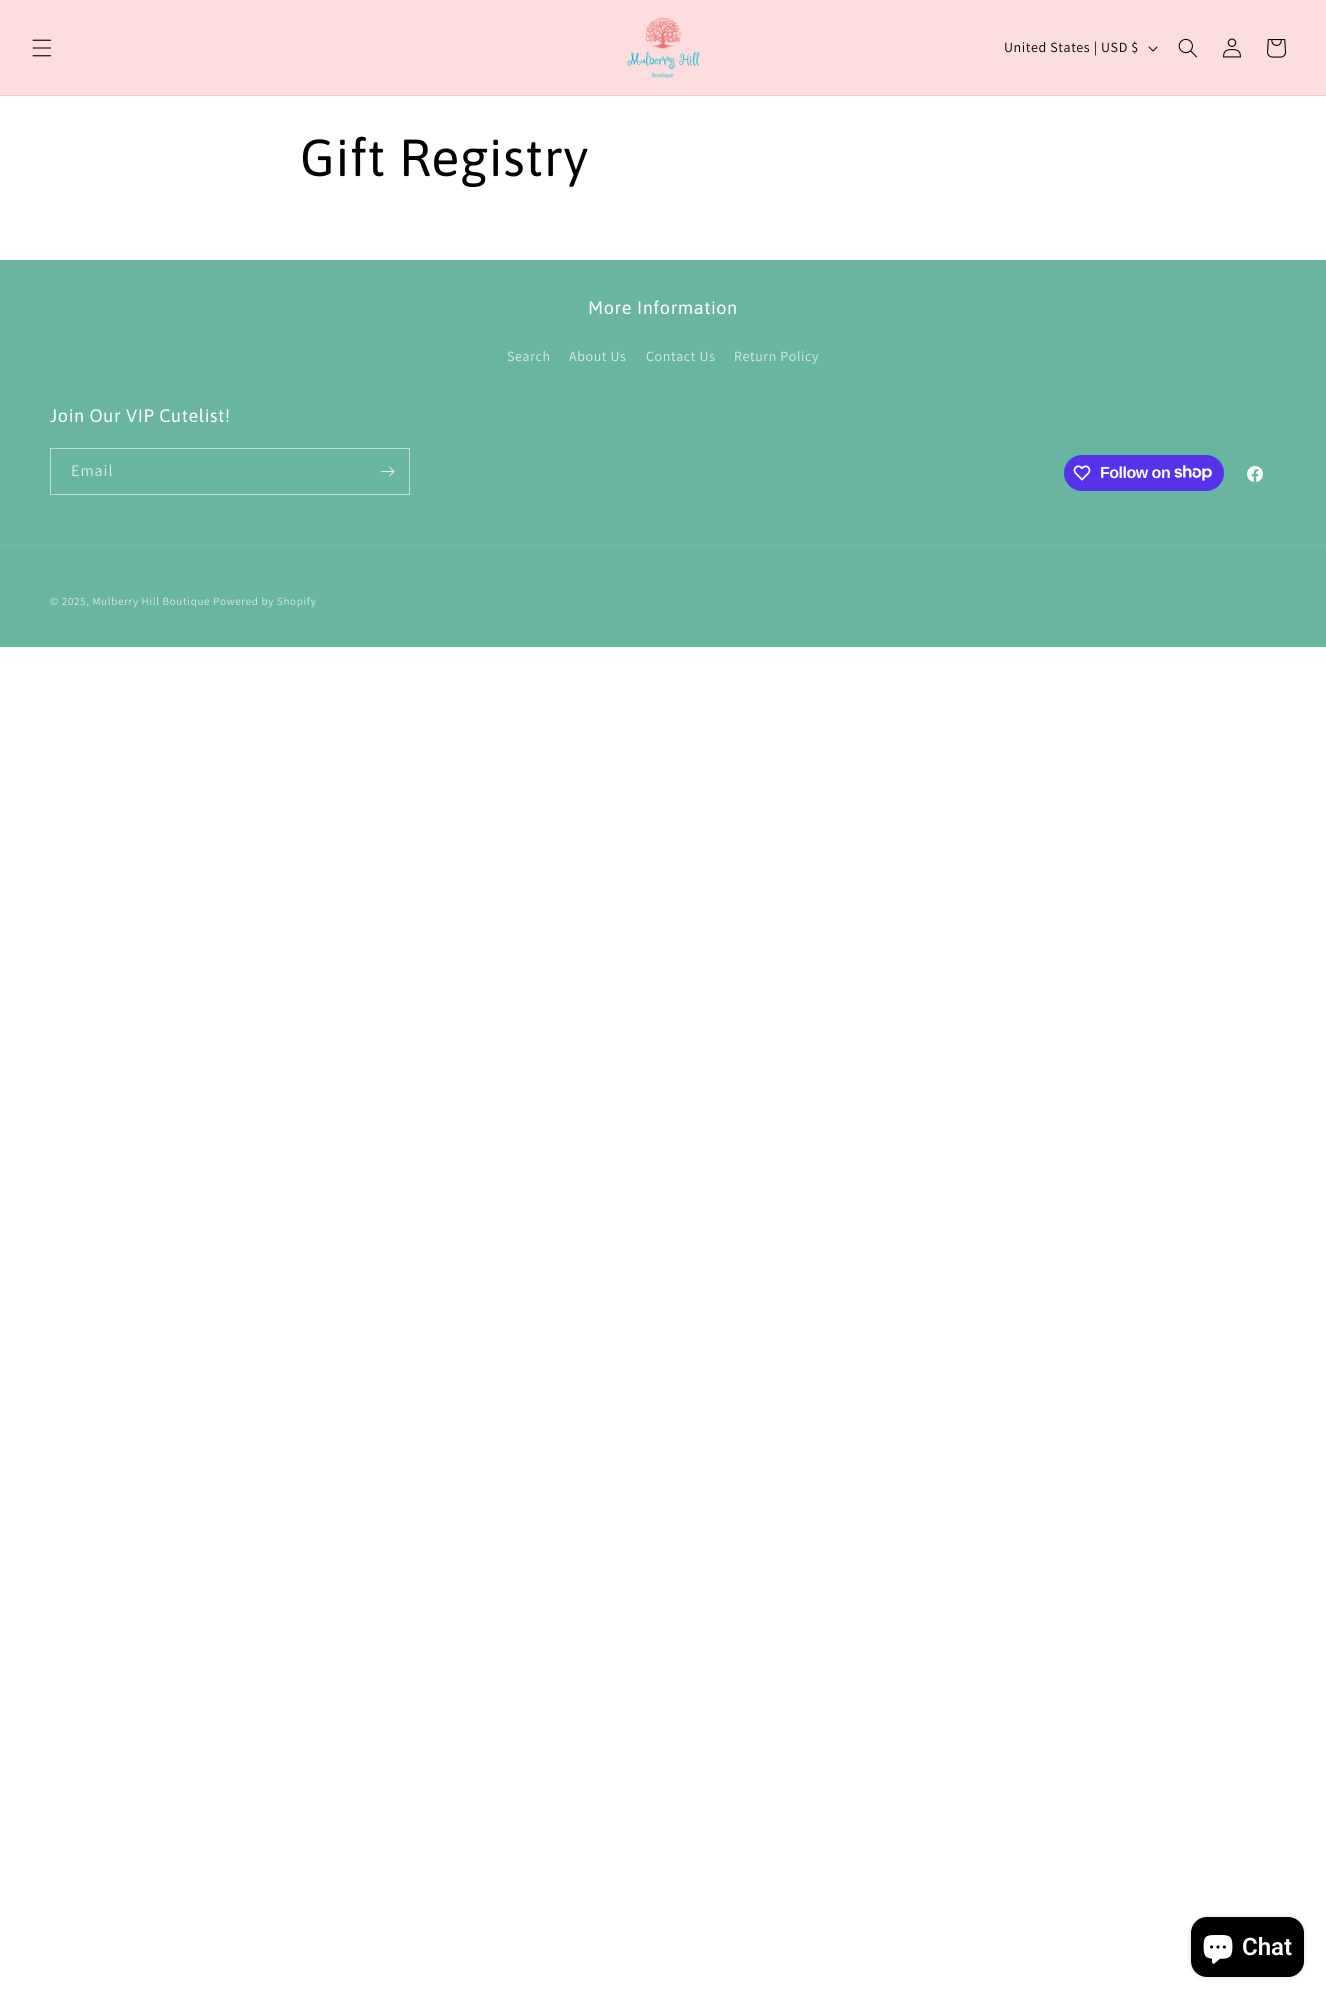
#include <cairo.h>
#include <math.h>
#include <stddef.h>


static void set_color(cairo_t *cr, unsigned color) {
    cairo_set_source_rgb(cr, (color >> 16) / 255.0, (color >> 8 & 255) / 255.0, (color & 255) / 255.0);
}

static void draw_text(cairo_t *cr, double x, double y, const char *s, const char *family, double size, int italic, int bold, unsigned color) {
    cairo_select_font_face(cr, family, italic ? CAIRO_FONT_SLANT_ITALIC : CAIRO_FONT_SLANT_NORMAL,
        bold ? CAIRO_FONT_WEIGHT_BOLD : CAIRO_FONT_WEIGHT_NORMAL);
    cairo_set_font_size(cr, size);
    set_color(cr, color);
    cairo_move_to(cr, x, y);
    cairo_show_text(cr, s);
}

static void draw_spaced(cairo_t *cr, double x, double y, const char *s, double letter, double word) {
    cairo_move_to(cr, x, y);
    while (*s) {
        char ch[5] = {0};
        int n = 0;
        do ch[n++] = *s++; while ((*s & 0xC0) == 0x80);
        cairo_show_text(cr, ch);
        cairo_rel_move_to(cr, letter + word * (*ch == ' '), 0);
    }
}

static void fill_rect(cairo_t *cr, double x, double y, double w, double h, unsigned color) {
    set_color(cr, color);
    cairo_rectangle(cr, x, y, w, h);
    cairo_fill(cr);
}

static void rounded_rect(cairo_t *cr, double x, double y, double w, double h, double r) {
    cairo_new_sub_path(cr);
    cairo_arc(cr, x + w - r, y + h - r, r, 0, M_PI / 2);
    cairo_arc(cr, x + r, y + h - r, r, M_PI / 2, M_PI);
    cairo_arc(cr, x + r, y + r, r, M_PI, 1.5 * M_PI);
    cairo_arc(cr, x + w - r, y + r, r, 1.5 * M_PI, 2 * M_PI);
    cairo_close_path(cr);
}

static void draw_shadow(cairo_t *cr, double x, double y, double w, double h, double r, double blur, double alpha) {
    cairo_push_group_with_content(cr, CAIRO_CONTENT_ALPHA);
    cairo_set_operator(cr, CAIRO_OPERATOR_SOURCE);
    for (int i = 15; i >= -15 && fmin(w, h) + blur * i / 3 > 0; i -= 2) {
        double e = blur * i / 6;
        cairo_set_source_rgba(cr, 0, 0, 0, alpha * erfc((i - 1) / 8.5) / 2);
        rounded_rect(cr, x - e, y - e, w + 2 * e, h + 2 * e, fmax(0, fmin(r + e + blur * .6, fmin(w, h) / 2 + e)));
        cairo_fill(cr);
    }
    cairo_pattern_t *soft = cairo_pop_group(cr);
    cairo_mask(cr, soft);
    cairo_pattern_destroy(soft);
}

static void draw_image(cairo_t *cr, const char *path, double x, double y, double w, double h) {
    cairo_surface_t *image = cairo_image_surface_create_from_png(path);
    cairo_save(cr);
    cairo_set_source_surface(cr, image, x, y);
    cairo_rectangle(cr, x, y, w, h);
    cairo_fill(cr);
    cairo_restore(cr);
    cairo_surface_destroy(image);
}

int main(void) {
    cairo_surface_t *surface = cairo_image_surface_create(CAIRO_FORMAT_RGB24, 1326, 1998);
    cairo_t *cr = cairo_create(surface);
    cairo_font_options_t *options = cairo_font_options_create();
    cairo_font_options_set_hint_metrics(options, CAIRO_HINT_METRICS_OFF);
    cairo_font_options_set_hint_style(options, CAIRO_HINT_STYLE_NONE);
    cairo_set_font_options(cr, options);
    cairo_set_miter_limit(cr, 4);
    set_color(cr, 0xFFFFFF);
    cairo_paint(cr);
    fill_rect(cr, 0, 0, 1326, 95, 0xFDDDDE);
    fill_rect(cr, 0, 95, 1326, 1, 0xE9CBCC);
    draw_image(cr, "assets/img1.png", 32, 39, 20, 18);
    draw_image(cr, "assets/img2.png", 627, 17, 73, 62);
    cairo_select_font_face(cr, "Assistant", CAIRO_FONT_SLANT_NORMAL, CAIRO_FONT_WEIGHT_NORMAL);
    cairo_set_font_size(cr, 14);
    set_color(cr, 0x000000);
    draw_spaced(cr, 1004, 52, "United States | USD $", 0.6, 0);
    draw_image(cr, "assets/img3.png", 1148, 46, 10, 6);
    draw_image(cr, "assets/img4.png", 1178, 38, 19, 20);
    draw_image(cr, "assets/img5.png", 1223, 38, 18, 20);
    draw_image(cr, "assets/img6.png", 1267, 39, 20, 19);
    cairo_select_font_face(cr, "Asap", CAIRO_FONT_SLANT_NORMAL, CAIRO_FONT_WEIGHT_NORMAL);
    cairo_set_font_size(cr, 52);
    draw_spaced(cr, 300, 176, "Gift Registry", 0.6, 0);
    fill_rect(cr, 0, 260, 1326, 387, 0x6AB5A0);
    cairo_set_font_size(cr, 18);
    set_color(cr, 0xFFFFFF);
    draw_spaced(cr, 588, 314, "More Information", 0.6, 0);
    cairo_select_font_face(cr, "Assistant", CAIRO_FONT_SLANT_NORMAL, CAIRO_FONT_WEIGHT_NORMAL);
    cairo_set_font_size(cr, 14);
    set_color(cr, 0xDAEDE7);
    draw_spaced(cr, 507, 361, "Search", 0.6, 0);
    draw_spaced(cr, 569, 361, "About Us", 0.6, 0);
    draw_spaced(cr, 646, 361, "Contact Us", 0.6, 0);
    draw_spaced(cr, 734, 361, "Return Policy", 0.6, 0);
    cairo_select_font_face(cr, "Asap", CAIRO_FONT_SLANT_NORMAL, CAIRO_FONT_WEIGHT_NORMAL);
    cairo_set_font_size(cr, 18);
    set_color(cr, 0xFFFFFF);
    draw_spaced(cr, 50, 422, "Join Our VIP Cutelist!", 0.6, 0);
    cairo_rectangle(cr, 50.5, 448.5, 359, 46);
    set_color(cr, 0xBCDED4);
    cairo_set_line_width(cr, 1);
    cairo_stroke(cr);
    cairo_select_font_face(cr, "Assistant", CAIRO_FONT_SLANT_NORMAL, CAIRO_FONT_WEIGHT_NORMAL);
    cairo_set_font_size(cr, 16);
    set_color(cr, 0xDAEDE7);
    draw_spaced(cr, 71, 476, "Email", 1, 0);
    draw_image(cr, "assets/img7.png", 380, 466, 15, 11);
    set_color(cr, 0x5433EB);
    rounded_rect(cr, 1064, 455, 160, 36, 18);
    cairo_fill(cr);
    draw_image(cr, "assets/img8.png", 1073, 465, 18, 16);
    cairo_select_font_face(cr, "Liberation Sans", CAIRO_FONT_SLANT_NORMAL, CAIRO_FONT_WEIGHT_BOLD);
    set_color(cr, 0xFFFFFF);
    draw_spaced(cr, 1100, 478, "Follow on", -0.5, 0);
    draw_image(cr, "assets/img9.png", 1174, 465, 38, 16);
    draw_image(cr, "assets/img10.png", 1247, 466, 16, 16);
    fill_rect(cr, 0, 545, 1326, 1, 0x76BBA8);
    cairo_select_font_face(cr, "Assistant", CAIRO_FONT_SLANT_NORMAL, CAIRO_FONT_WEIGHT_NORMAL);
    cairo_set_font_size(cr, 11);
    set_color(cr, 0xDAEDE7);
    draw_spaced(cr, 50, 605, "© 2025, Mulberry Hill Boutique Powered by Shopify", 0.7, 0);
    set_color(cr, 0x000000);
    draw_shadow(cr, 1191, 1917, 113, 60, 16, 2.5, 0.15);
    set_color(cr, 0x000000);
    rounded_rect(cr, 1191, 1917, 113, 60, 16);
    cairo_fill(cr);
    draw_image(cr, "assets/img11.png", 1203, 1935, 30, 29);
    draw_text(cr, 1242, 1955, "Chat", "Roboto SemiBold", 24, 0, 0, 0xFFFFFF);
    cairo_surface_write_to_png(surface, "output.png");
    cairo_font_options_destroy(options);
    cairo_destroy(cr);
    cairo_surface_destroy(surface);
    return 0;
}
